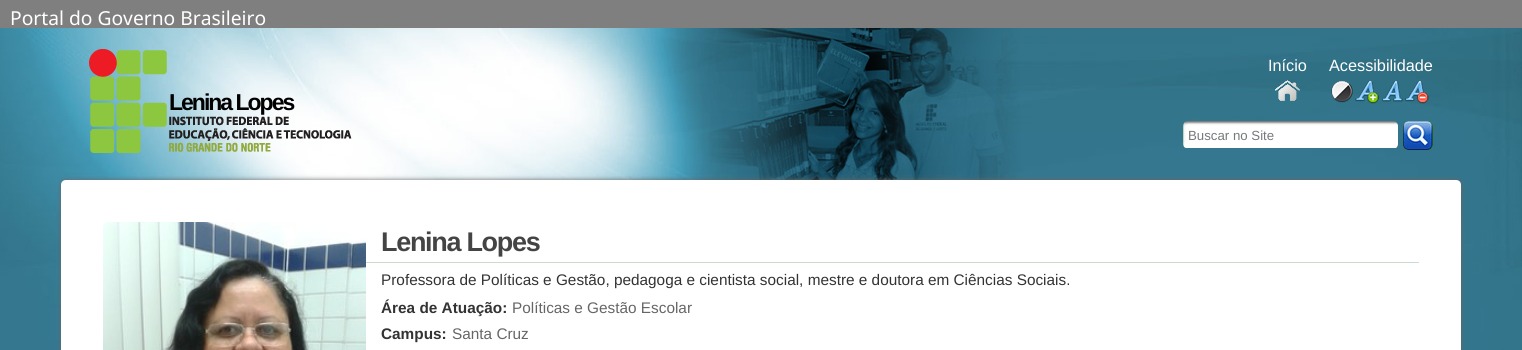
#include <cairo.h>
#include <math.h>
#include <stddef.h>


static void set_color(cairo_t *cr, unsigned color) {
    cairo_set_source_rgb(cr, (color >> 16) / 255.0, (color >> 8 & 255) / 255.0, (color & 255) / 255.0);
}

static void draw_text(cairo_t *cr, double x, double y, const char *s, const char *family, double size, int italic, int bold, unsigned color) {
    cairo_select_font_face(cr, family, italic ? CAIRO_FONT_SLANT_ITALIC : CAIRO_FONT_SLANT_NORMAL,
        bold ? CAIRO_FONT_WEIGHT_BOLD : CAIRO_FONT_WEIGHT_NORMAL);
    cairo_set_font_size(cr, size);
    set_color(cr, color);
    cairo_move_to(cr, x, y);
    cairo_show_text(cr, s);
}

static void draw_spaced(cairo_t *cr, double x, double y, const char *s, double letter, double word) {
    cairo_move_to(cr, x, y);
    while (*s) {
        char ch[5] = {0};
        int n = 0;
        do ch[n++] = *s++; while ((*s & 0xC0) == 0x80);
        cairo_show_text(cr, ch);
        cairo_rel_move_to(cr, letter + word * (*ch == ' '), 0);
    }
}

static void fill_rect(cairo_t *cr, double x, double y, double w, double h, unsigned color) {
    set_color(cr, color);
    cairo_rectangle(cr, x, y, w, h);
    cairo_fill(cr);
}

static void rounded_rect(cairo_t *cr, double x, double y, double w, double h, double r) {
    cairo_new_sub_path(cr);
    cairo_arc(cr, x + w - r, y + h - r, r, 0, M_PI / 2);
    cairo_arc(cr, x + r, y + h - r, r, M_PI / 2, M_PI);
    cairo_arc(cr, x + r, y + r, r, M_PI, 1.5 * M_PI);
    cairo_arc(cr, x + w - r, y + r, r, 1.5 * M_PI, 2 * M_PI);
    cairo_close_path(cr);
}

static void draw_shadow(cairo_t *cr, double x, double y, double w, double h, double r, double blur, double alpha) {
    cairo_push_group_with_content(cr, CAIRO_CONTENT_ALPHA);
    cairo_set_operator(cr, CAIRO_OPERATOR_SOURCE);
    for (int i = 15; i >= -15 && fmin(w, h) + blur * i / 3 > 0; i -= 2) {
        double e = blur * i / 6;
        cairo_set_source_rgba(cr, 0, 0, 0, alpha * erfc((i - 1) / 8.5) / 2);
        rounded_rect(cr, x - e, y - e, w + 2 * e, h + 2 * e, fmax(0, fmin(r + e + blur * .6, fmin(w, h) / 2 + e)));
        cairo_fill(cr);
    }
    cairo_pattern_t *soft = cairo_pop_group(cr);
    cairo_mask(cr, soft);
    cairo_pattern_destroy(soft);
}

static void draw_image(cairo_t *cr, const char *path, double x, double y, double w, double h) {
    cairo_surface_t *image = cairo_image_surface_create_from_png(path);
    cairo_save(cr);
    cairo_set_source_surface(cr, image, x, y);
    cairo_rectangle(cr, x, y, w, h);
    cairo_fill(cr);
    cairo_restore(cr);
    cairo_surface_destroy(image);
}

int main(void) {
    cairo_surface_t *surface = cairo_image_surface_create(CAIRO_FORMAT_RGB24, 1522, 350);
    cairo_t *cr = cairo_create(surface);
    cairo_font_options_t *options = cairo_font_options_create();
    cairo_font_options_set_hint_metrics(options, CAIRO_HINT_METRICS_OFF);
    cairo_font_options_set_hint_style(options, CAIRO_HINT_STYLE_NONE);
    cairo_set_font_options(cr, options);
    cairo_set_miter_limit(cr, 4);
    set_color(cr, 0xFFFFFF);
    cairo_paint(cr);
    draw_image(cr, "assets/img1.png", 0, 28, 1522, 322);
    fill_rect(cr, 0, 0, 1522, 28, 0x7F7F7F);
    draw_text(cr, 10, 25, "Portal do Governo Brasileiro", "Noto Sans", 19.25, 0, 0, 0xFFFFFF);
    draw_text(cr, 1268, 71, "Início", "Liberation Sans", 16.25, 0, 0, 0xFFFFFF);
    draw_image(cr, "assets/img2.png", 1275, 80, 25, 21);
    draw_text(cr, 1329, 71, "Acessibilidade", "Liberation Sans", 16.25, 0, 0, 0xFFFFFF);
    draw_image(cr, "assets/img3.png", 1331, 81, 22, 22);
    draw_image(cr, "assets/img4.png", 1355, 81, 24, 23);
    draw_image(cr, "assets/img5.png", 1382, 81, 21, 21);
    draw_image(cr, "assets/img6.png", 1405, 81, 24, 23);
    draw_image(cr, "assets/img7.png", 89, 49, 263, 104);
    cairo_select_font_face(cr, "Liberation Sans", CAIRO_FONT_SLANT_NORMAL, CAIRO_FONT_WEIGHT_BOLD);
    cairo_set_font_size(cr, 23);
    set_color(cr, 0x000000);
    draw_spaced(cr, 169, 110, "Lenina Lopes", -2, 0);
    draw_image(cr, "assets/img8.png", 1183, 121, 215, 27);
    draw_text(cr, 1188, 140, "Buscar no Site", "Liberation Sans", 13.25, 0, 0, 0x76797C);
    draw_image(cr, "assets/img9.png", 1403, 121, 30, 29);
    set_color(cr, 0x666666);
    draw_shadow(cr, 61, 180, 1400, 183, 5, 2.5, 1);
    set_color(cr, 0xFFFFFF);
    cairo_new_path(cr);
    cairo_move_to(cr, 66, 180);
    cairo_line_to(cr, 1456, 180);
    cairo_curve_to(cr, 1459, 180, 1461, 182, 1461, 185);
    cairo_line_to(cr, 1461, 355);
    cairo_line_to(cr, 61, 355);
    cairo_line_to(cr, 61, 185);
    cairo_curve_to(cr, 61, 182, 63, 180, 66, 180);
    cairo_close_path(cr);
    cairo_fill(cr);
    draw_image(cr, "assets/img10.png", 103, 222, 263, 128);
    fill_rect(cr, 366, 262, 1053, 1, 0xC9DDCE);
    cairo_select_font_face(cr, "Liberation Sans", CAIRO_FONT_SLANT_NORMAL, CAIRO_FONT_WEIGHT_BOLD);
    cairo_set_font_size(cr, 27);
    set_color(cr, 0x444444);
    draw_spaced(cr, 381, 251, "Lenina Lopes", -1.3, 0);
    draw_text(cr, 381, 285, "Professora de Políticas e Gestão, pedagoga e cientista social, mestre e doutora em Ciências Sociais.", "Liberation Sans", 15.35, 0, 0, 0x333333);
    draw_text(cr, 381, 313, "Área de Atuação:", "Liberation Sans", 15.35, 0, 1, 0x333333);
    draw_text(cr, 512, 313, "Políticas e Gestão Escolar", "Liberation Sans", 15.35, 0, 0, 0x666666);
    draw_text(cr, 381, 339, "Campus:", "Liberation Sans", 15.35, 0, 1, 0x333333);
    draw_text(cr, 452, 339, "Santa Cruz", "Liberation Sans", 15.35, 0, 0, 0x666666);
    cairo_surface_write_to_png(surface, "output.png");
    cairo_font_options_destroy(options);
    cairo_destroy(cr);
    cairo_surface_destroy(surface);
    return 0;
}
